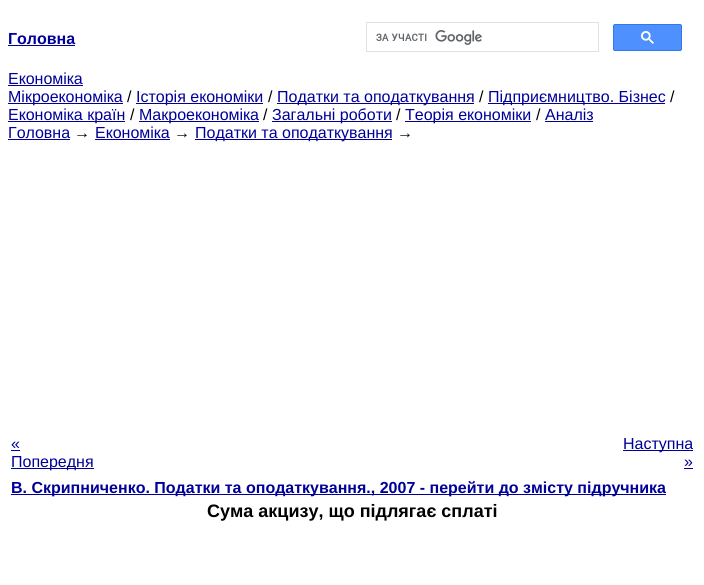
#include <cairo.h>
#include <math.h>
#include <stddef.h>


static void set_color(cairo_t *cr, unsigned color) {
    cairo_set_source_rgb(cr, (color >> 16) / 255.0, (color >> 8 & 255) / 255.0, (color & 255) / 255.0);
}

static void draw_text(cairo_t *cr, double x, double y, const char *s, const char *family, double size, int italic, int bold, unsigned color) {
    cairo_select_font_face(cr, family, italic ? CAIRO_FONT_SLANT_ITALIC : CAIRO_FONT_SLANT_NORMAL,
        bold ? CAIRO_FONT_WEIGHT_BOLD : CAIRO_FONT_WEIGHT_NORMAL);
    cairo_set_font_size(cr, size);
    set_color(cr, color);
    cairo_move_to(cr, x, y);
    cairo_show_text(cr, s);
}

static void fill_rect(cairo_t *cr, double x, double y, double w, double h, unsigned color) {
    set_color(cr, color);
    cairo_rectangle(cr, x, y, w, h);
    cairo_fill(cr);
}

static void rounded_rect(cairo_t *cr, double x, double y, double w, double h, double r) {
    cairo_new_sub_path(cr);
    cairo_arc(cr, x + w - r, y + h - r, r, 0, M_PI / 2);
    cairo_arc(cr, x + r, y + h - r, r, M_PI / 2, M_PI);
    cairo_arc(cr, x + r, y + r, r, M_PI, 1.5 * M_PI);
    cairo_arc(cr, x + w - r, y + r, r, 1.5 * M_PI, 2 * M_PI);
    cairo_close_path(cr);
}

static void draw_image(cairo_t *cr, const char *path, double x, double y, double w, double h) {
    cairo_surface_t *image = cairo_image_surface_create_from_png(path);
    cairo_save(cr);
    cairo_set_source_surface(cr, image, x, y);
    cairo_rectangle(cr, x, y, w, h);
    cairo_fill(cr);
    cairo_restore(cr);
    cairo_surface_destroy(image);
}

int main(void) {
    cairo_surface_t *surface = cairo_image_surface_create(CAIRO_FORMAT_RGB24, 704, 585);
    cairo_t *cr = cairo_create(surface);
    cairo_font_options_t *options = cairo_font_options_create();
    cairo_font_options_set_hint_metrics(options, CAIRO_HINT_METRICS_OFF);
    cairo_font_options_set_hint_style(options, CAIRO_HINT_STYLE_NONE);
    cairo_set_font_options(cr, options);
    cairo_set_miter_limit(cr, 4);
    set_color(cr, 0xFFFFFF);
    cairo_paint(cr);
    draw_text(cr, 8, 44, "Головна", "Liberation Sans", 16, 0, 1, 0x000099);
    fill_rect(cr, 8, 45, 67, 1, 0x000099);
    cairo_rectangle(cr, 366.5, 22.5, 232, 29);
    set_color(cr, 0xDFE1E5);
    cairo_set_line_width(cr, 1);
    cairo_stroke(cr);
    draw_image(cr, "assets/img1.png", 376, 30, 106, 15);
    set_color(cr, 0x4D90FE);
    rounded_rect(cr, 613.5, 24.5, 68, 26, 1.5);
    cairo_fill_preserve(cr);
    set_color(cr, 0x3079ED);
    cairo_stroke(cr);
    draw_image(cr, "assets/img2.png", 641, 31, 13, 13);
    draw_text(cr, 8, 84, "Економіка", "Liberation Sans", 16, 0, 0, 0x000099);
    fill_rect(cr, 8, 85, 75, 1, 0x000099);
    fill_rect(cr, 8, 103, 115, 1, 0x000099);
    draw_text(cr, 8, 102, "Мікроекономіка", "Liberation Sans", 16, 0, 0, 0x000099);
    draw_text(cr, 127, 102, "/", "Liberation Sans", 16, 0, 0, 0x000000);
    fill_rect(cr, 136, 103, 127, 1, 0x000099);
    draw_text(cr, 136, 102, "Історія економіки", "Liberation Sans", 16, 0, 0, 0x000099);
    draw_text(cr, 268, 102, "/", "Liberation Sans", 16, 0, 0, 0x000000);
    fill_rect(cr, 277, 103, 197, 1, 0x000099);
    draw_text(cr, 277, 102, "Податки та оподаткування", "Liberation Sans", 16, 0, 0, 0x000099);
    draw_text(cr, 479, 102, "/", "Liberation Sans", 16, 0, 0, 0x000000);
    fill_rect(cr, 488, 103, 177, 1, 0x000099);
    draw_text(cr, 488, 102, "Підприємництво. Бізнес", "Liberation Sans", 16, 0, 0, 0x000099);
    draw_text(cr, 670, 102, "/", "Liberation Sans", 16, 0, 0, 0x000000);
    fill_rect(cr, 8, 121, 117, 1, 0x000099);
    draw_text(cr, 8, 120, "Економіка країн", "Liberation Sans", 16, 0, 0, 0x000099);
    draw_text(cr, 130, 120, "/", "Liberation Sans", 16, 0, 0, 0x000000);
    fill_rect(cr, 139, 121, 120, 1, 0x000099);
    draw_text(cr, 139, 120, "Макроекономіка", "Liberation Sans", 16, 0, 0, 0x000099);
    draw_text(cr, 263, 120, "/", "Liberation Sans", 16, 0, 0, 0x000000);
    fill_rect(cr, 272, 121, 120, 1, 0x000099);
    draw_text(cr, 272, 120, "Загальні роботи", "Liberation Sans", 16, 0, 0, 0x000099);
    draw_text(cr, 396, 120, "/", "Liberation Sans", 16, 0, 0, 0x000000);
    fill_rect(cr, 405, 121, 126, 1, 0x000099);
    draw_text(cr, 405, 120, "Теорія економіки", "Liberation Sans", 16, 0, 0, 0x000099);
    draw_text(cr, 536, 120, "/", "Liberation Sans", 16, 0, 0, 0x000000);
    draw_text(cr, 545, 120, "Аналіз", "Liberation Sans", 16, 0, 0, 0x000099);
    fill_rect(cr, 545, 121, 48, 1, 0x000099);
    draw_text(cr, 8, 138, "Головна", "Liberation Sans", 16, 0, 0, 0x000099);
    fill_rect(cr, 8, 139, 62, 1, 0x000099);
    draw_text(cr, 74, 138, "→", "Liberation Sans", 16, 0, 0, 0x000000);
    draw_text(cr, 95, 138, "Економіка", "Liberation Sans", 16, 0, 0, 0x000099);
    fill_rect(cr, 95, 139, 75, 1, 0x000099);
    draw_text(cr, 174, 138, "→", "Liberation Sans", 16, 0, 0, 0x000000);
    fill_rect(cr, 195, 139, 197, 1, 0x000099);
    draw_text(cr, 195, 138, "Податки та оподаткування", "Liberation Sans", 16, 0, 0, 0x000099);
    draw_text(cr, 397, 138, "→", "Liberation Sans", 16, 0, 0, 0x000000);
    draw_text(cr, 11, 449, "«", "Liberation Sans", 16, 0, 0, 0x000099);
    fill_rect(cr, 11, 450, 9, 1, 0x000099);
    fill_rect(cr, 11, 468, 83, 1, 0x000099);
    draw_text(cr, 11, 467, "Попередня", "Liberation Sans", 16, 0, 0, 0x000099);
    fill_rect(cr, 623, 450, 70, 1, 0x000099);
    draw_text(cr, 623, 449, "Наступна", "Liberation Sans", 16, 0, 0, 0x000099);
    draw_text(cr, 684, 467, "»", "Liberation Sans", 16, 0, 0, 0x000099);
    fill_rect(cr, 684, 468, 9, 1, 0x000099);
    fill_rect(cr, 11, 494, 655, 1, 0x000099);
    draw_text(cr, 11, 493, "В. Скрипниченко. Податки та оподаткування., 2007 - перейти до змісту підручника", "Liberation Sans", 16, 0, 1, 0x000099);
    draw_text(cr, 207, 517, "Сума акцизу, що підлягає сплаті", "Liberation Sans", 18, 0, 1, 0x000000);
    cairo_surface_write_to_png(surface, "output.png");
    cairo_font_options_destroy(options);
    cairo_destroy(cr);
    cairo_surface_destroy(surface);
    return 0;
}
